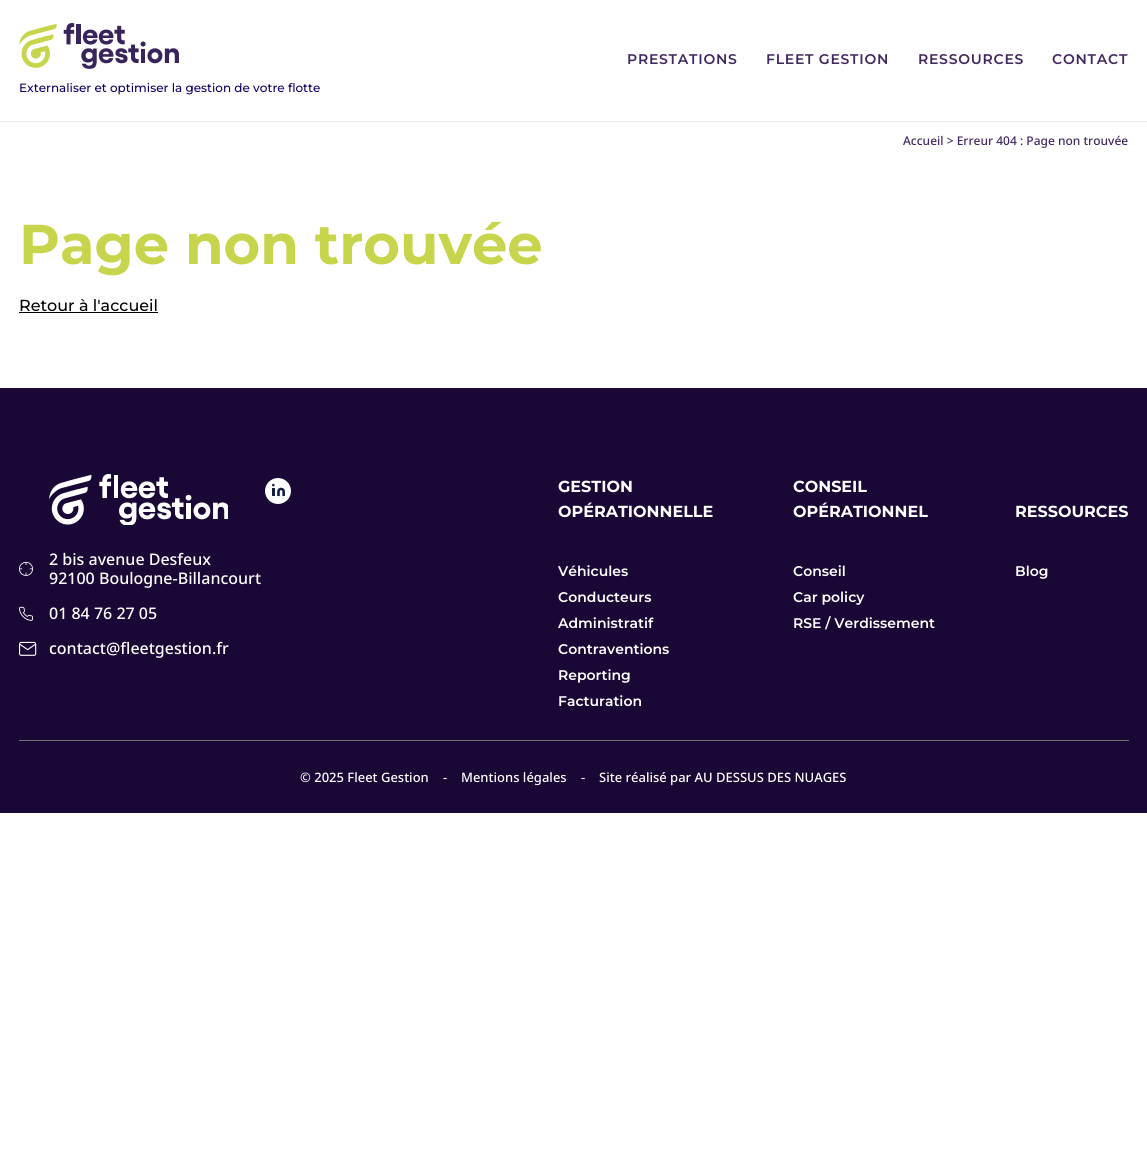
#include <cairo.h>
#include <math.h>
#include <stddef.h>


static void set_color(cairo_t *cr, unsigned color) {
    cairo_set_source_rgb(cr, (color >> 16) / 255.0, (color >> 8 & 255) / 255.0, (color & 255) / 255.0);
}

static void draw_text(cairo_t *cr, double x, double y, const char *s, const char *family, double size, int italic, int bold, unsigned color) {
    cairo_select_font_face(cr, family, italic ? CAIRO_FONT_SLANT_ITALIC : CAIRO_FONT_SLANT_NORMAL,
        bold ? CAIRO_FONT_WEIGHT_BOLD : CAIRO_FONT_WEIGHT_NORMAL);
    cairo_set_font_size(cr, size);
    set_color(cr, color);
    cairo_move_to(cr, x, y);
    cairo_show_text(cr, s);
}

static void draw_spaced(cairo_t *cr, double x, double y, const char *s, double letter, double word) {
    cairo_move_to(cr, x, y);
    while (*s) {
        char ch[5] = {0};
        int n = 0;
        do ch[n++] = *s++; while ((*s & 0xC0) == 0x80);
        cairo_show_text(cr, ch);
        cairo_rel_move_to(cr, letter + word * (*ch == ' '), 0);
    }
}

static void fill_rect(cairo_t *cr, double x, double y, double w, double h, unsigned color) {
    set_color(cr, color);
    cairo_rectangle(cr, x, y, w, h);
    cairo_fill(cr);
}

static void draw_image(cairo_t *cr, const char *path, double x, double y, double w, double h) {
    cairo_surface_t *image = cairo_image_surface_create_from_png(path);
    cairo_save(cr);
    cairo_set_source_surface(cr, image, x, y);
    cairo_rectangle(cr, x, y, w, h);
    cairo_fill(cr);
    cairo_restore(cr);
    cairo_surface_destroy(image);
}

int main(void) {
    cairo_surface_t *surface = cairo_image_surface_create(CAIRO_FORMAT_RGB24, 1147, 1164);
    cairo_t *cr = cairo_create(surface);
    cairo_font_options_t *options = cairo_font_options_create();
    cairo_font_options_set_hint_metrics(options, CAIRO_HINT_METRICS_OFF);
    cairo_font_options_set_hint_style(options, CAIRO_HINT_STYLE_NONE);
    cairo_set_font_options(cr, options);
    cairo_set_miter_limit(cr, 4);
    set_color(cr, 0xFFFFFF);
    cairo_paint(cr);
    fill_rect(cr, 0, 121, 1147, 1, 0xEBEBEB);
    cairo_select_font_face(cr, "Montserrat SemiBold", CAIRO_FONT_SLANT_NORMAL, CAIRO_FONT_WEIGHT_NORMAL);
    cairo_set_font_size(cr, 14);
    set_color(cr, 0x422860);
    draw_spaced(cr, 627, 64, "PRESTATIONS", 0.75, 0);
    draw_spaced(cr, 766, 64, "FLEET GESTION", 0.75, 0);
    draw_spaced(cr, 918, 64, "RESSOURCES", 0.75, 0);
    draw_spaced(cr, 1052, 64, "CONTACT", 0.75, 0);
    draw_image(cr, "assets/img1.png", 19, 23, 160, 46);
    draw_text(cr, 19, 92, "Externaliser et optimiser la gestion de votre flotte", "Montserrat Medium", 12, 0, 0, 0x100067);
    draw_text(cr, 903, 145, "Accueil > Erreur 404 : Page non trouvée", "Noto Sans Medium", 12, 0, 0, 0x422860);
    draw_text(cr, 19, 264, "Page non trouvée", "Montserrat", 56, 0, 1, 0xC6D54C);
    draw_text(cr, 19, 311, "Retour à l'accueil", "Montserrat Medium", 16, 0, 0, 0x000000);
    fill_rect(cr, 19, 312, 139, 1, 0x000000);
    fill_rect(cr, 0, 388, 1147, 425, 0x190736);
    fill_rect(cr, 19, 740, 1110, 1, 0x707070);
    draw_image(cr, "assets/img2.png", 49, 474, 179, 51);
    draw_image(cr, "assets/img3.png", 265, 478, 26, 26);
    draw_image(cr, "assets/img4.png", 19, 561, 14, 15);
    draw_text(cr, 49, 565, "2 bis avenue Desfeux", "Noto Sans Medium", 16, 0, 0, 0xFFFFFF);
    draw_text(cr, 49, 584, "92100 Boulogne-Billancourt", "Noto Sans Medium", 16, 0, 0, 0xFFFFFF);
    draw_image(cr, "assets/img5.png", 19, 606, 14, 15);
    draw_text(cr, 49, 619, "01 84 76 27 05", "Noto Sans Medium", 16, 0, 0, 0xFFFFFF);
    draw_image(cr, "assets/img6.png", 19, 641, 18, 15);
    draw_text(cr, 49, 654, "contact@fleetgestion.fr", "Noto Sans Medium", 16, 0, 0, 0xFFFFFF);
    draw_text(cr, 558, 492, "GESTION", "Montserrat", 16, 0, 1, 0xFFFFFF);
    draw_text(cr, 558, 517, "OPÉRATIONNELLE", "Montserrat", 16, 0, 1, 0xFFFFFF);
    draw_text(cr, 558, 576, "Véhicules", "Montserrat SemiBold", 14, 0, 0, 0xFFFFFF);
    draw_text(cr, 558, 602, "Conducteurs", "Montserrat SemiBold", 14, 0, 0, 0xFFFFFF);
    draw_text(cr, 558, 628, "Administratif", "Montserrat SemiBold", 14, 0, 0, 0xFFFFFF);
    draw_text(cr, 558, 654, "Contraventions", "Montserrat SemiBold", 14, 0, 0, 0xFFFFFF);
    draw_text(cr, 558, 680, "Reporting", "Montserrat SemiBold", 14, 0, 0, 0xFFFFFF);
    draw_text(cr, 558, 706, "Facturation", "Montserrat SemiBold", 14, 0, 0, 0xFFFFFF);
    draw_text(cr, 793, 492, "CONSEIL", "Montserrat", 16, 0, 1, 0xFFFFFF);
    draw_text(cr, 793, 517, "OPÉRATIONNEL", "Montserrat", 16, 0, 1, 0xFFFFFF);
    draw_text(cr, 793, 576, "Conseil", "Montserrat SemiBold", 14, 0, 0, 0xFFFFFF);
    draw_text(cr, 793, 602, "Car policy", "Montserrat SemiBold", 14, 0, 0, 0xFFFFFF);
    draw_text(cr, 793, 628, "RSE / Verdissement", "Montserrat SemiBold", 14, 0, 0, 0xFFFFFF);
    draw_text(cr, 1015, 517, "RESSOURCES", "Montserrat", 16, 0, 1, 0xFFFFFF);
    draw_text(cr, 1015, 576, "Blog", "Montserrat SemiBold", 14, 0, 0, 0xFFFFFF);
    draw_text(cr, 300, 782, "© 2025 Fleet Gestion", "Noto Sans Medium", 13, 0, 0, 0xFFFFFF);
    draw_text(cr, 443, 782, "-", "Noto Sans Medium", 13, 0, 0, 0xFFFFFF);
    draw_text(cr, 461, 782, "Mentions légales", "Noto Sans Medium", 13, 0, 0, 0xFFFFFF);
    draw_text(cr, 581, 782, "-", "Noto Sans Medium", 13, 0, 0, 0xFFFFFF);
    draw_text(cr, 599, 782, "Site réalisé par AU DESSUS DES NUAGES", "Noto Sans Medium", 13, 0, 0, 0xFFFFFF);
    cairo_surface_write_to_png(surface, "output.png");
    cairo_font_options_destroy(options);
    cairo_destroy(cr);
    cairo_surface_destroy(surface);
    return 0;
}
